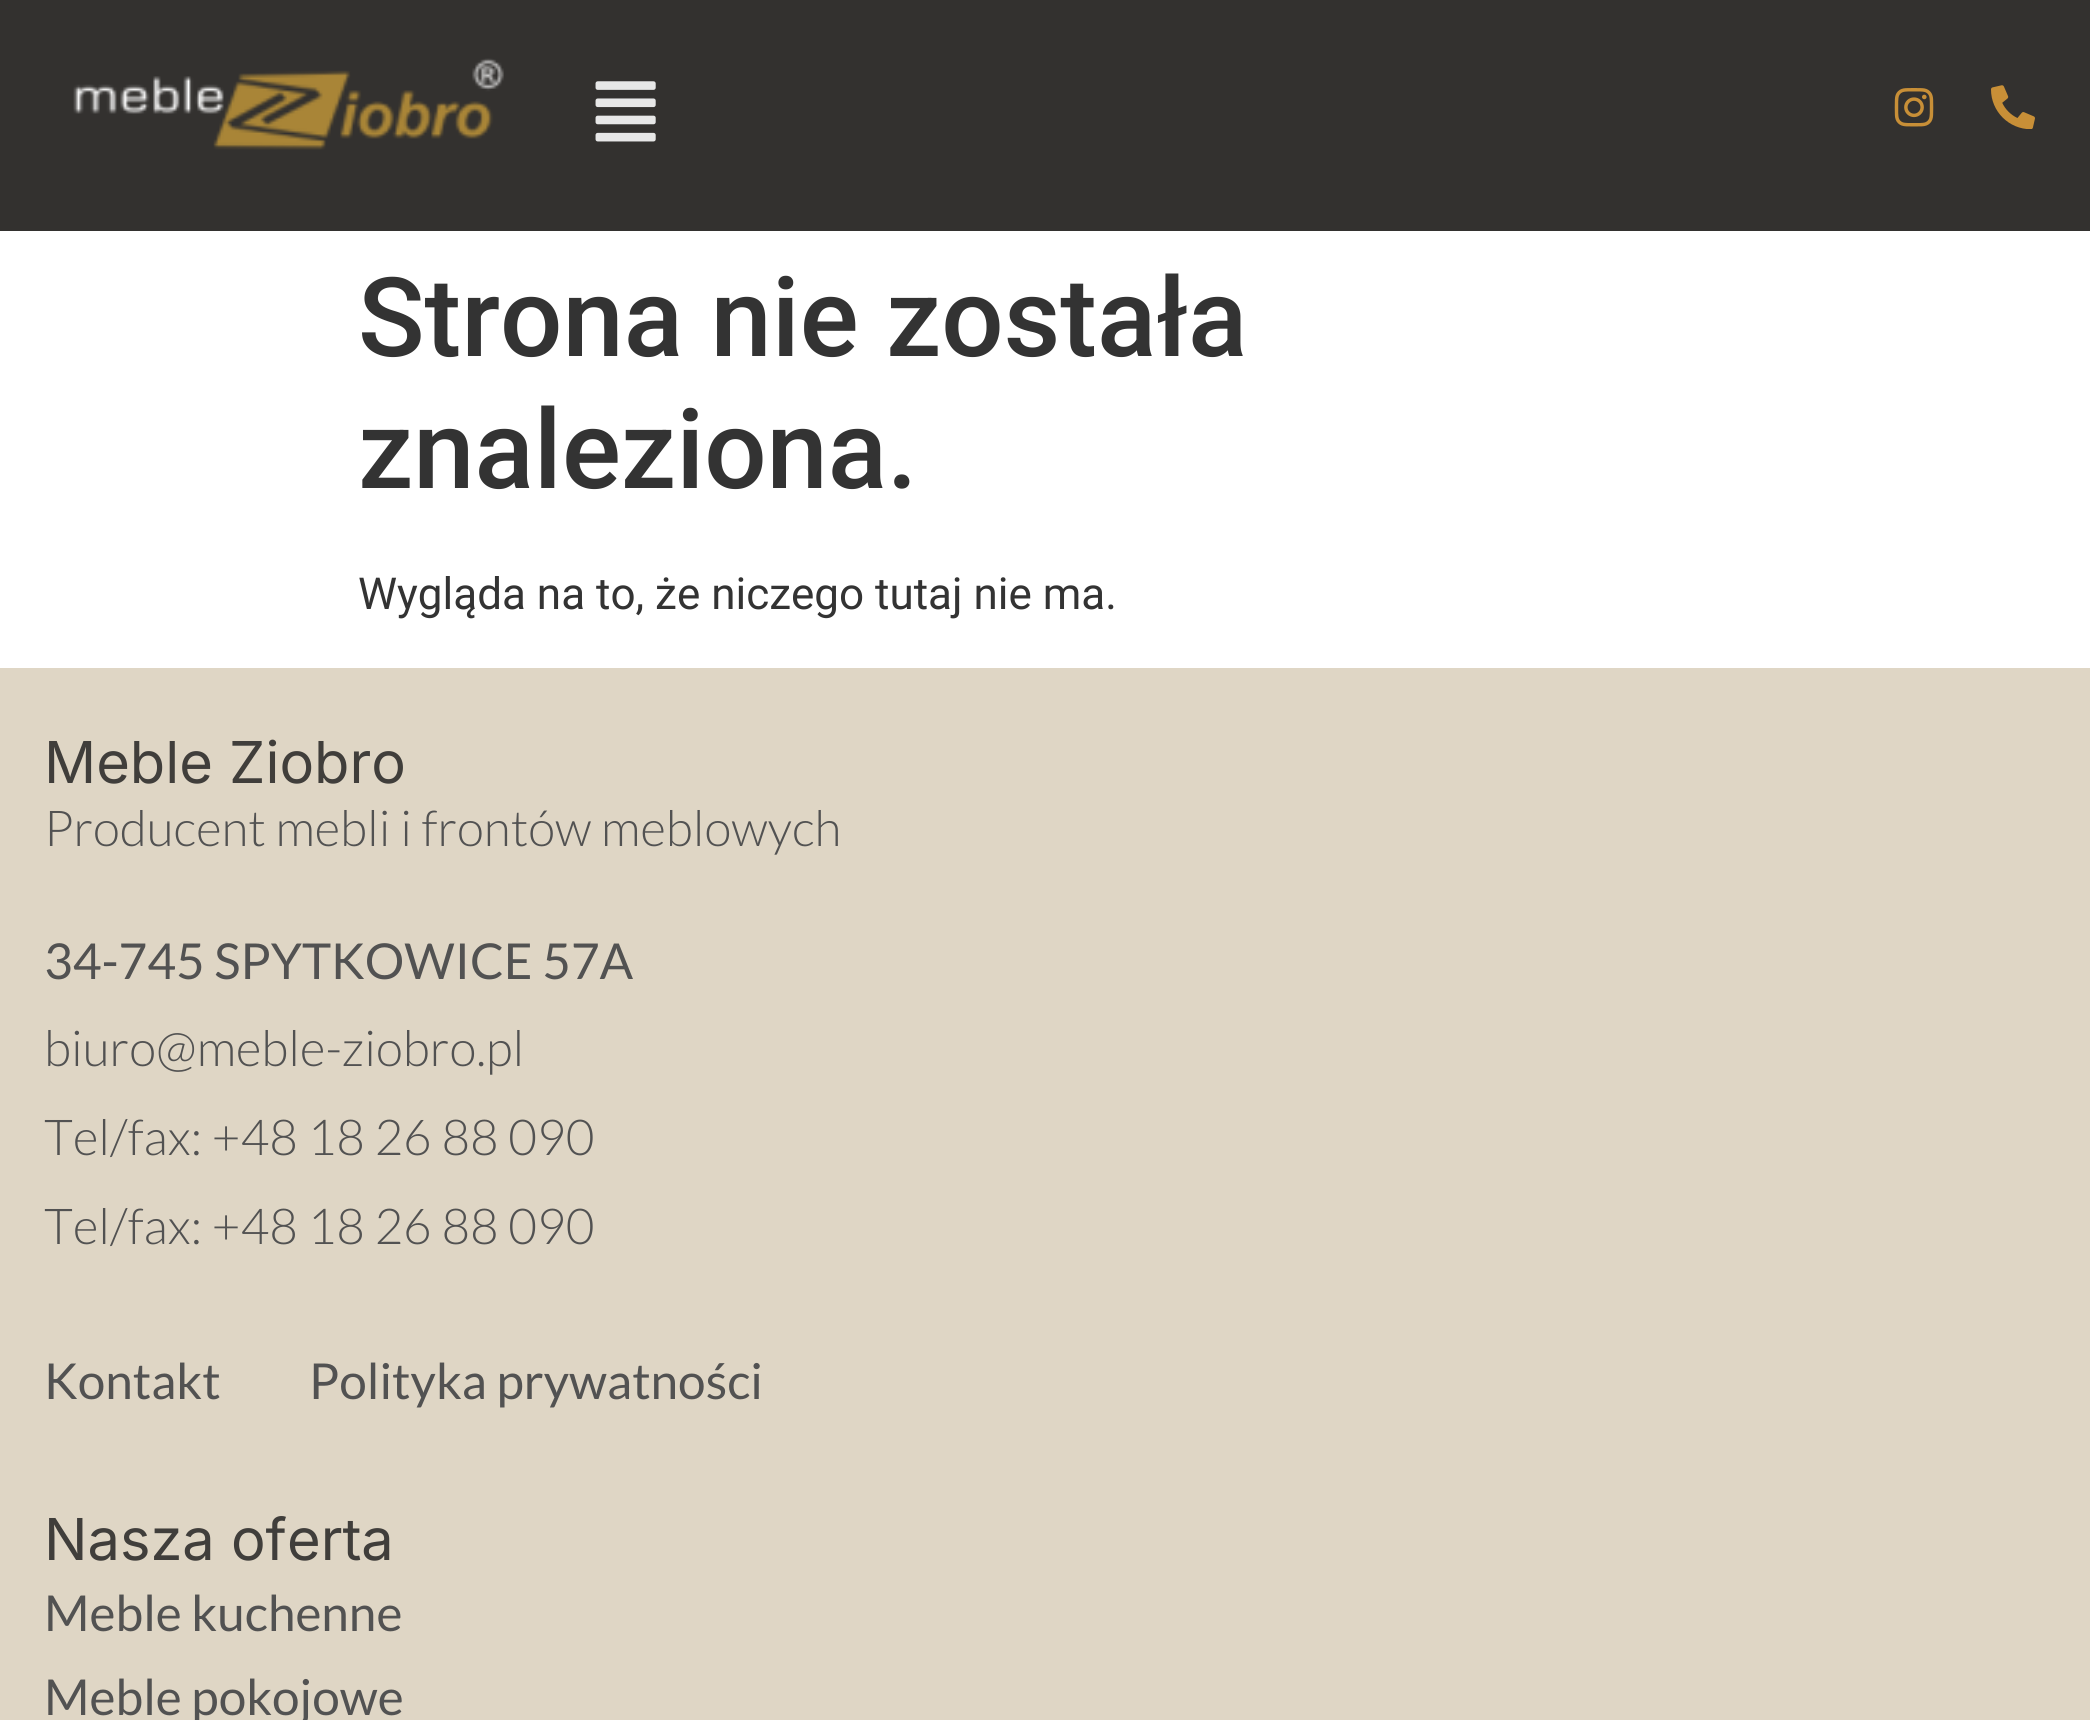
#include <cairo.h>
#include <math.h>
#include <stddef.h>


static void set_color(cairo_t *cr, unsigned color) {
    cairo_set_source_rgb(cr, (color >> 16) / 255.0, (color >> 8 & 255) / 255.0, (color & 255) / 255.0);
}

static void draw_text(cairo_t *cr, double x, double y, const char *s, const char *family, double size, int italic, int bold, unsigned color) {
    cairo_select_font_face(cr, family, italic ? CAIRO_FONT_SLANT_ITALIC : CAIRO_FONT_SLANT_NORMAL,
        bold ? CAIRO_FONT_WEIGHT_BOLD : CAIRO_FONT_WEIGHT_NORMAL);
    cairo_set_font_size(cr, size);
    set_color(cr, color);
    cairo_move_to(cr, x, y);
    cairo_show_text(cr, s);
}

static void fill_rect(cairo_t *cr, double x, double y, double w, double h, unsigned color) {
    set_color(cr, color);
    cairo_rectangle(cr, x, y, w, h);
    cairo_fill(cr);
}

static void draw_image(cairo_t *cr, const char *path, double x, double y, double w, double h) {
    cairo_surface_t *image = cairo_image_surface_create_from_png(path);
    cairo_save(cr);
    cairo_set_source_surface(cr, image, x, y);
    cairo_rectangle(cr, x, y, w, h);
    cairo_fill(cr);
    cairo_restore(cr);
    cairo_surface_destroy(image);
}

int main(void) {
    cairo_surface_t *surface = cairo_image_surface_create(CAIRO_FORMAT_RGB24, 2090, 1720);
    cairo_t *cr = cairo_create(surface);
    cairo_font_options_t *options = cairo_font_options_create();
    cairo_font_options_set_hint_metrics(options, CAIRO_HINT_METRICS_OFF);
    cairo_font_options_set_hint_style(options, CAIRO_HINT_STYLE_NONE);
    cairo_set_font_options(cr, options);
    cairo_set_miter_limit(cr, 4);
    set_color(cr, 0xFFFFFF);
    cairo_paint(cr);
    fill_rect(cr, 0, 0, 2090, 231, 0x33312F);
    draw_image(cr, "assets/img1.png", 73, 58, 431, 92);
    draw_image(cr, "assets/img2.png", 595, 81, 61, 61);
    draw_image(cr, "assets/img3.png", 1894, 88, 40, 39);
    draw_image(cr, "assets/img4.png", 1991, 85, 44, 44);
    draw_text(cr, 358, 356, "Strona nie została", "Roboto Medium", 110, 0, 0, 0x333333);
    draw_text(cr, 358, 488, "znaleziona.", "Roboto Medium", 110, 0, 0, 0x333333);
    draw_text(cr, 358, 609, "Wygląda na to, że niczego tutaj nie ma.", "Roboto", 44, 0, 0, 0x333333);
    fill_rect(cr, 0, 668, 2090, 1052, 0xDFD6C5);
    draw_text(cr, 44, 783, "Meble Ziobro", "Inter", 57.75, 0, 0, 0x403E3B);
    draw_text(cr, 44, 846, "Producent mebli i frontów meblowych", "Lato Light", 49.5, 0, 0, 0x525252);
    draw_text(cr, 44, 979, "34-745 SPYTKOWICE 57A", "Lato", 49.5, 0, 0, 0x525252);
    draw_text(cr, 44, 1066, "biuro@meble-ziobro.pl", "Lato Light", 49.5, 0, 0, 0x525252);
    draw_text(cr, 44, 1155, "Tel/fax: +48 18 26 88 090", "Lato Light", 49.5, 0, 0, 0x525252);
    draw_text(cr, 44, 1244, "Tel/fax: +48 18 26 88 090", "Lato Light", 49.5, 0, 0, 0x525252);
    draw_text(cr, 44, 1399, "Kontakt", "Lato", 49.5, 0, 0, 0x525252);
    draw_text(cr, 309, 1399, "Polityka prywatności", "Lato", 49.5, 0, 0, 0x525252);
    draw_text(cr, 44, 1560, "Nasza oferta", "Inter", 57.75, 0, 0, 0x403E3B);
    draw_text(cr, 44, 1631, "Meble kuchenne", "Lato", 49.5, 0, 0, 0x525252);
    draw_text(cr, 44, 1715, "Meble pokojowe", "Lato", 49.5, 0, 0, 0x525252);
    cairo_surface_write_to_png(surface, "output.png");
    cairo_font_options_destroy(options);
    cairo_destroy(cr);
    cairo_surface_destroy(surface);
    return 0;
}
